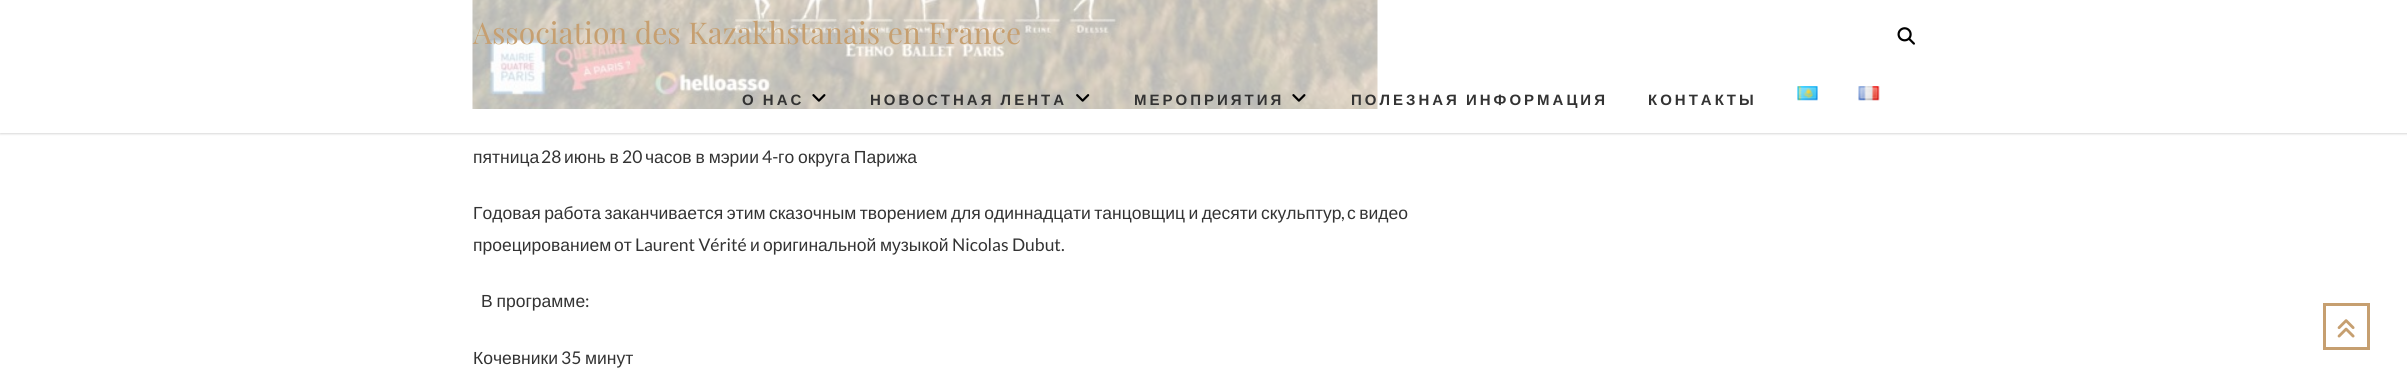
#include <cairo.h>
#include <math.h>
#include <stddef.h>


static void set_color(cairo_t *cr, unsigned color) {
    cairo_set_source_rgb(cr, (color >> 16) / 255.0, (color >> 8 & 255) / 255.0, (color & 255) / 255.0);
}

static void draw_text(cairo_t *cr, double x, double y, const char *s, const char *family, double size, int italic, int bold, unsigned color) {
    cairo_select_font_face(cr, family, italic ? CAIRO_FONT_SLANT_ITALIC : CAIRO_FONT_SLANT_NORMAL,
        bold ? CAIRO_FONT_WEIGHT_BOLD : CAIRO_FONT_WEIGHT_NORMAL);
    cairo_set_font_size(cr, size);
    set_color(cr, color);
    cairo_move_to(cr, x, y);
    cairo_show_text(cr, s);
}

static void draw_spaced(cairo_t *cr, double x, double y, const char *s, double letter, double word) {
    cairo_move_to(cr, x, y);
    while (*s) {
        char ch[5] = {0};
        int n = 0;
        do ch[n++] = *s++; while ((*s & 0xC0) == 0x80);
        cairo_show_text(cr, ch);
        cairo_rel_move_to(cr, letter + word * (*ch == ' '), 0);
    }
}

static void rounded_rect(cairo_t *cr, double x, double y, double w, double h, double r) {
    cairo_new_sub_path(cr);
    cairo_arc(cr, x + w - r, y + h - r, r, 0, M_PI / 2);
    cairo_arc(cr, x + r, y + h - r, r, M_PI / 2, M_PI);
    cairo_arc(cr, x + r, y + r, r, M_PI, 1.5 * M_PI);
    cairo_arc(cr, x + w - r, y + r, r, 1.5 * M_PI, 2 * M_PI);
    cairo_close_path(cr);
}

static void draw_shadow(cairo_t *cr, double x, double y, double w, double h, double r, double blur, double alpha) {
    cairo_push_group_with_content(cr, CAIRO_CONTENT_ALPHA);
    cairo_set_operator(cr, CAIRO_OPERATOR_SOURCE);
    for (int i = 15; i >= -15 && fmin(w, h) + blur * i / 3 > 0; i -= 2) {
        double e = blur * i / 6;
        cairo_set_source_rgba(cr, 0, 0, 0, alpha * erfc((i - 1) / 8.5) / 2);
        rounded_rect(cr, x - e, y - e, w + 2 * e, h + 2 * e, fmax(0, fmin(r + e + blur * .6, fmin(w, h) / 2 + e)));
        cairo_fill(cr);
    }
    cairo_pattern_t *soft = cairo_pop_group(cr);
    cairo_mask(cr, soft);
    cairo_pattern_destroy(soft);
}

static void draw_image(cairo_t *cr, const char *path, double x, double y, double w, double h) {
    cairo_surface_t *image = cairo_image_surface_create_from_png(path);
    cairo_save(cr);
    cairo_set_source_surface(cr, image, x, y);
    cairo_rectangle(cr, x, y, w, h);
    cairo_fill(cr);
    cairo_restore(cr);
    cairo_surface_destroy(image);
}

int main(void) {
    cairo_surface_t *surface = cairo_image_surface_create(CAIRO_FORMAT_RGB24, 2407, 375);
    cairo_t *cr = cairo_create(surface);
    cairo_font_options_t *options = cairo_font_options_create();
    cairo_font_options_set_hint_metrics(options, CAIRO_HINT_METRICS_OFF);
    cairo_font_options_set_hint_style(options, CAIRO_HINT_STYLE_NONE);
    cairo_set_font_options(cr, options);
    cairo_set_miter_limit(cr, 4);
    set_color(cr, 0xFFFFFF);
    cairo_paint(cr);
    draw_image(cr, "assets/img7.png", 472, 0, 906, 109);
    cairo_save(cr);
    cairo_set_fill_rule(cr, CAIRO_FILL_RULE_EVEN_ODD);
    cairo_new_path(cr);
    cairo_move_to(cr, 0, 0);
    cairo_line_to(cr, 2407, 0);
    cairo_line_to(cr, 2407, 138);
    cairo_line_to(cr, 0, 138);
    cairo_close_path(cr);
    cairo_move_to(cr, 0, 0);
    cairo_line_to(cr, 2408, 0);
    cairo_line_to(cr, 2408, 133);
    cairo_line_to(cr, 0, 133);
    cairo_close_path(cr);
    cairo_clip(cr);
    set_color(cr, 0x000000);
    draw_shadow(cr, 0, 1, 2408, 133, 0, 1, 0.15);
    cairo_restore(cr);
    cairo_set_source_rgba(cr, 1, 1, 1, 0.7);
    cairo_rectangle(cr, 0, 0, 2407, 133);
    cairo_fill(cr);
    draw_text(cr, 473, 44, "Association des Kazakhstanais en France", "Playfair Display", 30, 0, 0, 0xC69F70);
    draw_image(cr, "assets/img1.png", 1897, 27, 18, 18);
    cairo_select_font_face(cr, "Liberation Sans", CAIRO_FONT_SLANT_NORMAL, CAIRO_FONT_WEIGHT_BOLD);
    cairo_set_font_size(cr, 15);
    set_color(cr, 0x333333);
    draw_spaced(cr, 742, 105, "О НАС", 3, -1);
    draw_image(cr, "assets/img2.png", 812, 94, 14, 8);
    draw_spaced(cr, 870, 105, "НОВОСТНАЯ ЛЕНТА", 3, -1);
    draw_image(cr, "assets/img3.png", 1076, 94, 14, 8);
    draw_spaced(cr, 1134, 105, "МЕРОПРИЯТИЯ", 3, 0);
    draw_image(cr, "assets/img4.png", 1292, 94, 14, 8);
    draw_spaced(cr, 1351, 105, "ПОЛЕЗНАЯ ИНФОРМАЦИЯ", 3, -1);
    draw_spaced(cr, 1648, 105, "КОНТАКТЫ", 3, 0);
    draw_image(cr, "assets/img5.png", 1797, 86, 21, 15);
    draw_image(cr, "assets/img6.png", 1858, 86, 22, 15);
    draw_text(cr, 473, 163, "пятница", "Liberation Sans", 17.5, 0, 0, 0x333333);
    draw_text(cr, 541, 163, "28", "Lato", 17.5, 0, 0, 0x333333);
    cairo_select_font_face(cr, "Liberation Sans", CAIRO_FONT_SLANT_NORMAL, CAIRO_FONT_WEIGHT_NORMAL);
    draw_spaced(cr, 564, 163, "июнь в", 0, -1);
    draw_text(cr, 622, 163, "20", "Lato", 17.5, 0, 0, 0x333333);
    cairo_select_font_face(cr, "Liberation Sans", CAIRO_FONT_SLANT_NORMAL, CAIRO_FONT_WEIGHT_NORMAL);
    draw_spaced(cr, 645, 163, "часов в мэрии", 0, -1);
    draw_text(cr, 762, 163, "4-", "Lato", 17.5, 0, 0, 0x333333);
    cairo_select_font_face(cr, "Liberation Sans", CAIRO_FONT_SLANT_NORMAL, CAIRO_FONT_WEIGHT_NORMAL);
    draw_spaced(cr, 778, 163, "го округа Парижа", 0, -1);
    draw_spaced(cr, 473, 219, "Годовая работа заканчивается этим сказочным творением для одиннадцати танцовщиц и десяти скульптур", 0, -1.4);
    draw_text(cr, 1341, 219, ",", "Lato", 17.5, 0, 0, 0x333333);
    cairo_select_font_face(cr, "Liberation Sans", CAIRO_FONT_SLANT_NORMAL, CAIRO_FONT_WEIGHT_NORMAL);
    draw_spaced(cr, 1347, 219, "с видео", 0, -1.4);
    draw_text(cr, 473, 251, "проецированием", "Liberation Sans", 17.5, 0, 0, 0x333333);
    draw_text(cr, 614, 251, "от", "Liberation Sans", 17.5, 0, 0, 0x333333);
    draw_text(cr, 635, 251, "Laurent Vérité", "Lato", 17.5, 0, 0, 0x333333);
    draw_text(cr, 750, 251, "и", "Liberation Sans", 17.5, 0, 0, 0x333333);
    draw_text(cr, 763, 251, "оригинальной", "Liberation Sans", 17.5, 0, 0, 0x333333);
    draw_text(cr, 880, 251, "музыкой", "Liberation Sans", 17.5, 0, 0, 0x333333);
    draw_text(cr, 952, 251, "Nicolas Dubut.", "Lato", 17.5, 0, 0, 0x333333);
    cairo_select_font_face(cr, "Liberation Sans", CAIRO_FONT_SLANT_NORMAL, CAIRO_FONT_WEIGHT_NORMAL);
    draw_spaced(cr, 481, 307, "В программе", 0, -1);
    draw_text(cr, 585, 307, ":", "Lato", 17.5, 0, 0, 0x333333);
    draw_text(cr, 473, 364, "Кочевники", "Liberation Sans", 17.5, 0, 0, 0x333333);
    draw_text(cr, 561, 364, "35", "Lato", 17.5, 0, 0, 0x333333);
    draw_text(cr, 585, 364, "минут", "Liberation Sans", 17.5, 0, 0, 0x333333);
    cairo_rectangle(cr, 2324.5, 304.5, 44, 44);
    set_color(cr, 0xC69F70);
    cairo_set_line_width(cr, 3);
    cairo_stroke(cr);
    draw_image(cr, "assets/img8.png", 2337, 319, 18, 19);
    cairo_surface_write_to_png(surface, "output.png");
    cairo_font_options_destroy(options);
    cairo_destroy(cr);
    cairo_surface_destroy(surface);
    return 0;
}
